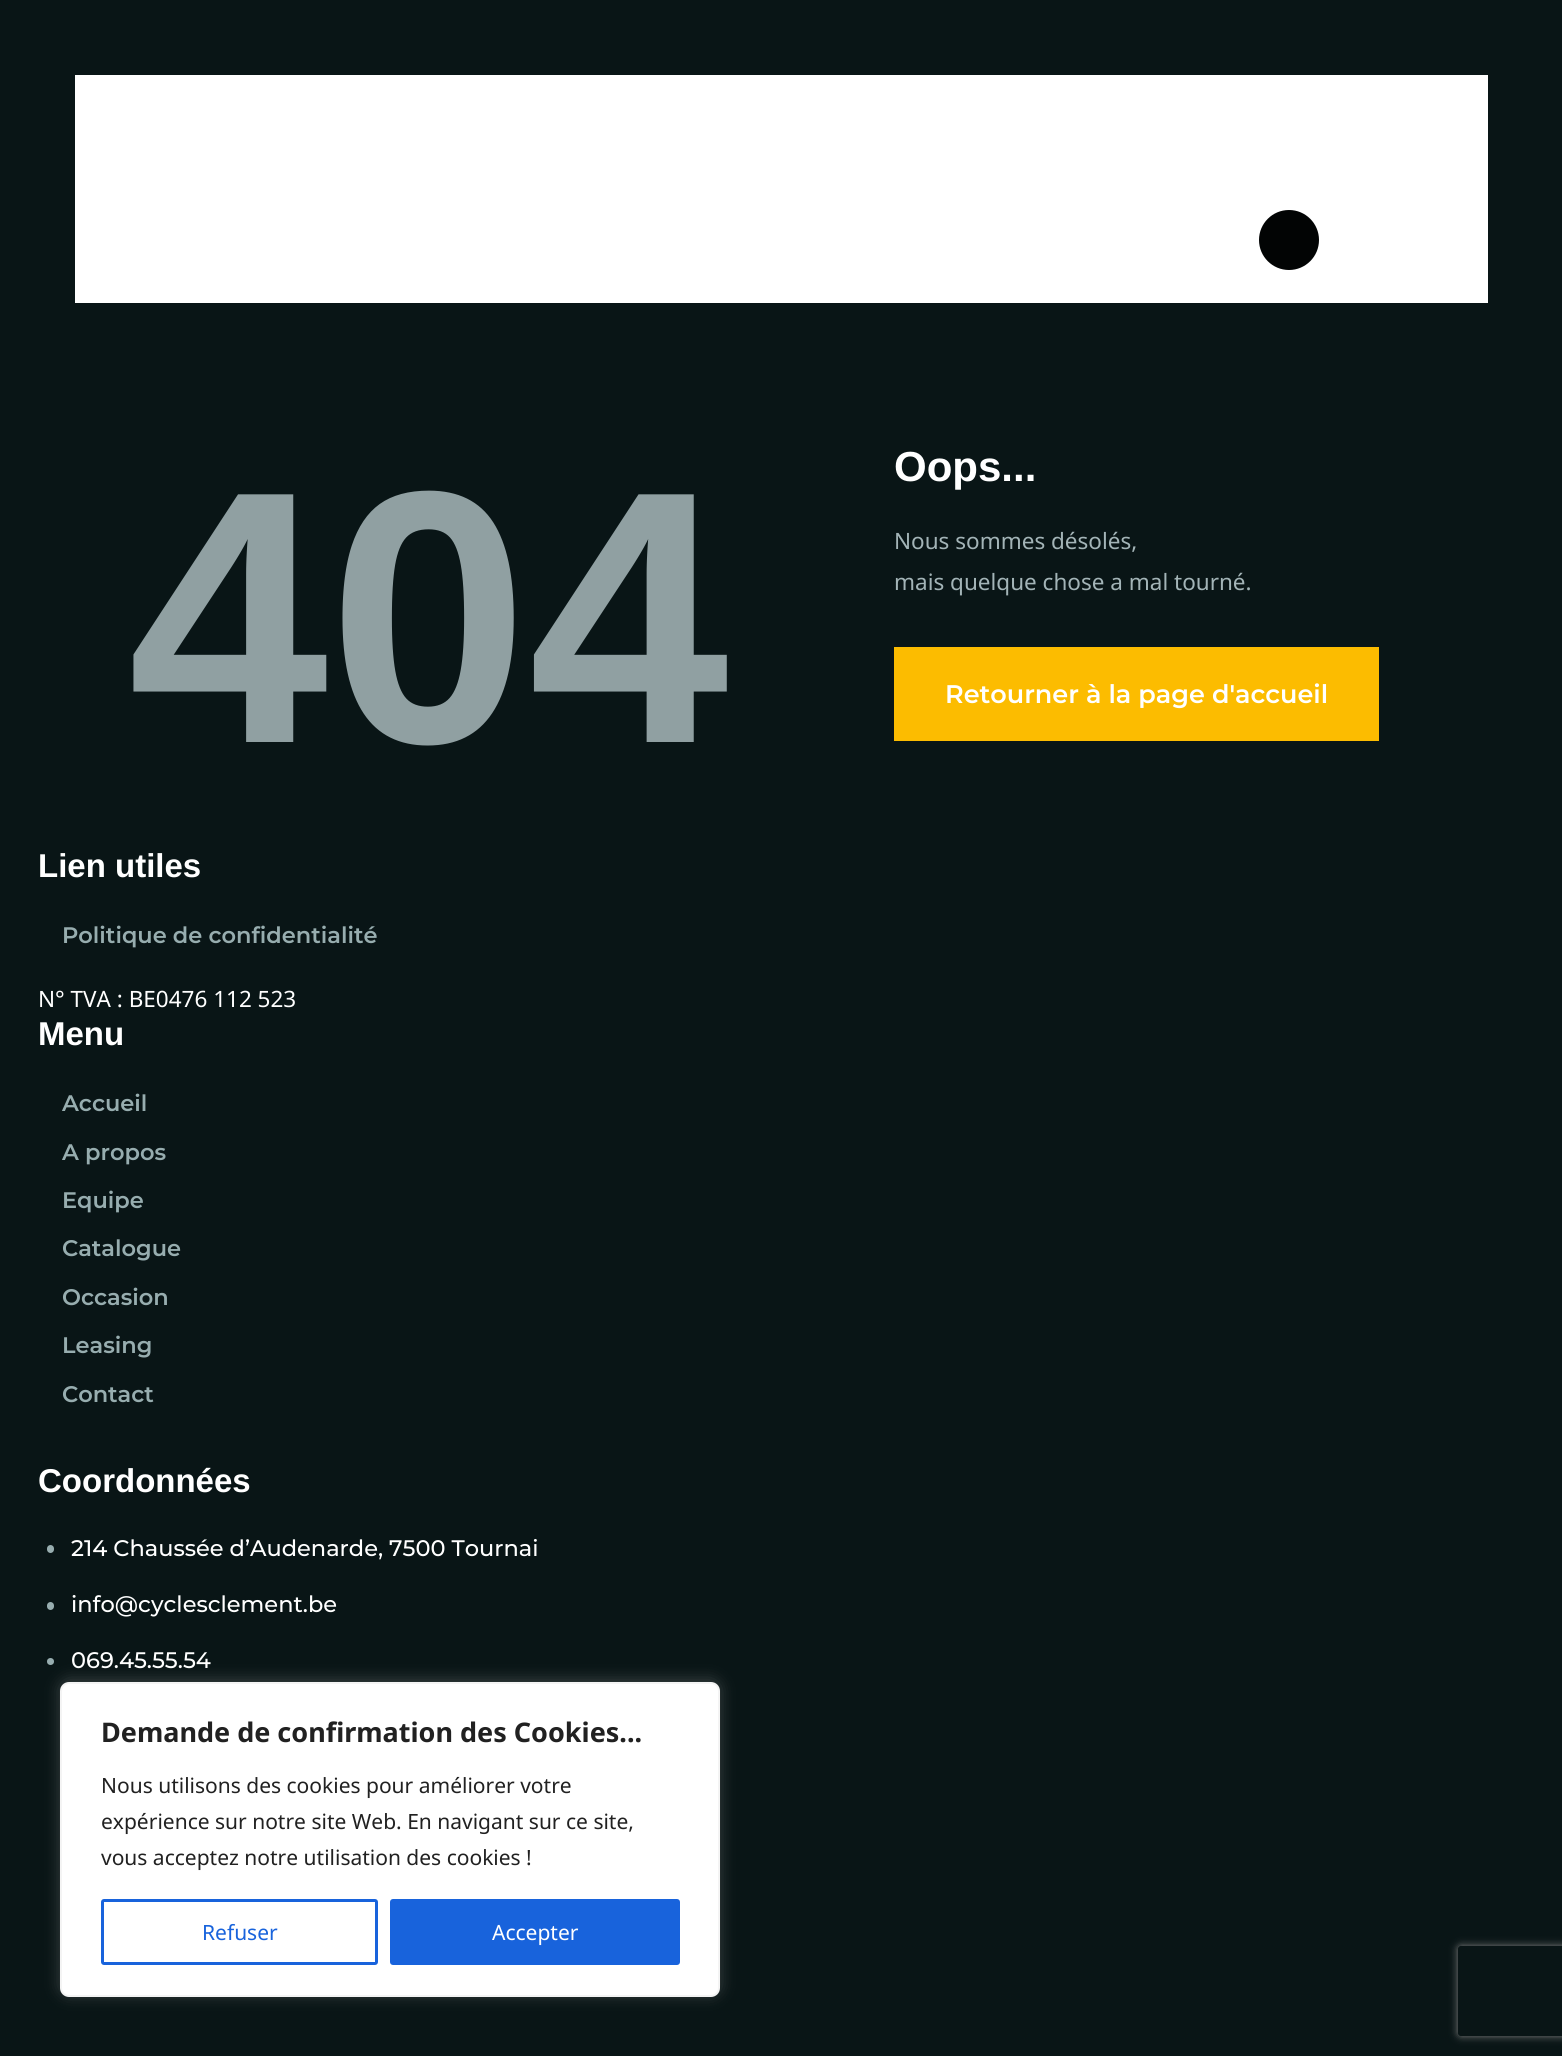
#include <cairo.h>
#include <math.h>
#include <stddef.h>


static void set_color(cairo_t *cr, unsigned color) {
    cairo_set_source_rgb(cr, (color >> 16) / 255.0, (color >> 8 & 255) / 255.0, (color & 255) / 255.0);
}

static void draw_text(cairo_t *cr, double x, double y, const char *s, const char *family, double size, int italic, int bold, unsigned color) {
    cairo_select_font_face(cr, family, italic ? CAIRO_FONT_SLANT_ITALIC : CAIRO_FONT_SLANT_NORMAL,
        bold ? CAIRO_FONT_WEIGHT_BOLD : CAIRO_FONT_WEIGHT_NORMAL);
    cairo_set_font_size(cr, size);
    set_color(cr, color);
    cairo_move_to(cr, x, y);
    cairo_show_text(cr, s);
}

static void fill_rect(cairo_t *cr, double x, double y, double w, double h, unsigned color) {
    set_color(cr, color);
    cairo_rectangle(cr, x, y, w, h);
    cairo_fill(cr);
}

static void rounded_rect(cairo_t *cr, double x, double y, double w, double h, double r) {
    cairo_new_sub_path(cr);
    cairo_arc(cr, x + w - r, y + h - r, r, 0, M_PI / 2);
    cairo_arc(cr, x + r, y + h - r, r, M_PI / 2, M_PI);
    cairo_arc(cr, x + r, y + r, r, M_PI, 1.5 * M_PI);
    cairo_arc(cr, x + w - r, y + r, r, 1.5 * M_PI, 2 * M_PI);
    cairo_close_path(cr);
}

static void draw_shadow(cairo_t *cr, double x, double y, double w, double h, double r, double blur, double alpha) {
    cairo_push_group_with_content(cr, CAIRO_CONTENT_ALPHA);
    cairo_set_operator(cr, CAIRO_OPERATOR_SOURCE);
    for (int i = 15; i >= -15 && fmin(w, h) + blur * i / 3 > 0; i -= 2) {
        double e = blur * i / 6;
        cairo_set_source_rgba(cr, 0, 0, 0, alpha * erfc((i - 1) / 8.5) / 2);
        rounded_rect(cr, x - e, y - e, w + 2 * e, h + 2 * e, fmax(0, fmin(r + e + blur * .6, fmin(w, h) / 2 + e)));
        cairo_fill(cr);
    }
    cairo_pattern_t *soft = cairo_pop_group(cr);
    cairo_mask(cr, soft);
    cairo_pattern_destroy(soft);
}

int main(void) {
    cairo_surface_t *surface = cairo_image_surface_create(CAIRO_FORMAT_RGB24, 1562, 2056);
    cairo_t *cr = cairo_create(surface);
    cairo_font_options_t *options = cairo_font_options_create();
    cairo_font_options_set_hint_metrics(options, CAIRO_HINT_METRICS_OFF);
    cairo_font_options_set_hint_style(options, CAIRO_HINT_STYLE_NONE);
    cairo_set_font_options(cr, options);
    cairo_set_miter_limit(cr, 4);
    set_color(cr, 0x091516);
    cairo_paint(cr);
    fill_rect(cr, 75, 75, 1413, 228, 0xFFFFFF);
    set_color(cr, 0x020404);
    cairo_arc(cr, 1289, 240, 30, 0, 2 * M_PI);
    cairo_fill(cr);
    draw_text(cr, 128, 742, "404", "Liberation Sans", 360, 0, 1, 0x90A0A2);
    draw_text(cr, 894, 481, "Oops...", "Liberation Sans", 42, 0, 1, 0xFFFFFF);
    draw_text(cr, 894, 549, "Nous sommes désolés,", "Noto Sans", 22.5, 0, 0, 0xA3B4B7);
    draw_text(cr, 894, 590, "mais quelque chose a mal tourné.", "Noto Sans", 22.5, 0, 0, 0xA3B4B7);
    fill_rect(cr, 894, 647, 485, 94, 0xFCBC00);
    draw_text(cr, 945, 703, "Retourner à la page d'accueil", "Montserrat SemiBold", 25.5, 0, 0, 0xFFFFFF);
    draw_text(cr, 38, 877, "Lien utiles", "Liberation Sans", 33, 0, 1, 0xFFFFFF);
    draw_text(cr, 62, 943, "Politique de confidentialité", "Montserrat SemiBold", 22.5, 0, 0, 0x97ADAF);
    draw_text(cr, 38, 1007, "N° TVA : BE0476 112 523", "Noto Sans", 22.5, 0, 0, 0xFFFFFF);
    draw_text(cr, 38, 1045, "Menu", "Liberation Sans", 33, 0, 1, 0xFFFFFF);
    draw_text(cr, 62, 1111, "Accueil", "Montserrat SemiBold", 22.5, 0, 0, 0x97ADAF);
    draw_text(cr, 62, 1160, "A propos", "Montserrat SemiBold", 22.5, 0, 0, 0x97ADAF);
    draw_text(cr, 62, 1208, "Equipe", "Montserrat SemiBold", 22.5, 0, 0, 0x97ADAF);
    draw_text(cr, 62, 1256, "Catalogue", "Montserrat SemiBold", 22.5, 0, 0, 0x97ADAF);
    draw_text(cr, 62, 1305, "Occasion", "Montserrat SemiBold", 22.5, 0, 0, 0x97ADAF);
    draw_text(cr, 62, 1353, "Leasing", "Montserrat SemiBold", 22.5, 0, 0, 0x97ADAF);
    draw_text(cr, 62, 1402, "Contact", "Montserrat SemiBold", 22.5, 0, 0, 0x97ADAF);
    draw_text(cr, 38, 1492, "Coordonnées", "Liberation Sans", 33, 0, 1, 0xFFFFFF);
    set_color(cr, 0x97ADAF);
    rounded_rect(cr, 47, 1545, 7, 8, 3.5);
    cairo_fill(cr);
    draw_text(cr, 71, 1556, "214 Chaussée d’Audenarde, 7500 Tournai", "Montserrat Medium", 22.5, 0, 0, 0xFFFFFF);
    set_color(cr, 0x97ADAF);
    rounded_rect(cr, 47, 1602, 7, 8, 3.5);
    cairo_fill(cr);
    draw_text(cr, 71, 1612, "info@cyclesclement.be", "Montserrat Medium", 22.5, 0, 0, 0xFFFFFF);
    set_color(cr, 0x97ADAF);
    cairo_new_path(cr);
    cairo_arc(cr, 50.5, 1661.5, 3.5, 0, 2 * M_PI);
    cairo_fill(cr);
    draw_text(cr, 71, 1668, "069.45.55.54", "Montserrat Medium", 22.5, 0, 0, 0xFFFFFF);
    set_color(cr, 0xACABAB);
    draw_shadow(cr, 60, 1680, 660, 315, 9, 7.5, 0.3);
    set_color(cr, 0xFFFFFF);
    rounded_rect(cr, 61, 1683, 658, 313, 8);
    cairo_fill_preserve(cr);
    set_color(cr, 0xF4F4F4);
    cairo_stroke(cr);
    draw_text(cr, 101, 1742, "Demande de confirmation des Cookies...", "Noto Sans", 27, 0, 1, 0x212121);
    draw_text(cr, 101, 1793, "Nous utilisons des cookies pour améliorer votre", "Noto Sans", 21, 0, 0, 0x212121);
    draw_text(cr, 101, 1829, "expérience sur notre site Web. En navigant sur ce site,", "Noto Sans", 21, 0, 0, 0x212121);
    draw_text(cr, 101, 1865, "vous acceptez notre utilisation des cookies !", "Noto Sans", 21, 0, 0, 0x212121);
    rounded_rect(cr, 102.5, 1900.5, 274, 63, 1.5);
    set_color(cr, 0x1863DC);
    cairo_set_line_width(cr, 3);
    cairo_stroke(cr);
    draw_text(cr, 202, 1940, "Refuser", "Noto Sans", 21, 0, 0, 0x1863DC);
    rounded_rect(cr, 391.5, 1900.5, 287, 63, 1.5);
    cairo_fill_preserve(cr);
    cairo_stroke(cr);
    draw_text(cr, 492, 1940, "Accepter", "Noto Sans", 21, 0, 0, 0xFFFFFF);
    cairo_save(cr);
    cairo_set_fill_rule(cr, CAIRO_FILL_RULE_EVEN_ODD);
    cairo_new_path(cr);
    cairo_move_to(cr, 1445, 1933);
    cairo_line_to(cr, 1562, 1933);
    cairo_line_to(cr, 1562, 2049);
    cairo_line_to(cr, 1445, 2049);
    cairo_close_path(cr);
    cairo_move_to(cr, 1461, 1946);
    cairo_line_to(cr, 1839, 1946);
    cairo_curve_to(cr, 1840.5, 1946, 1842, 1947.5, 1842, 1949);
    cairo_line_to(cr, 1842, 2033);
    cairo_curve_to(cr, 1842, 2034.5, 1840.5, 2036, 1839, 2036);
    cairo_line_to(cr, 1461, 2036);
    cairo_curve_to(cr, 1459.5, 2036, 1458, 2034.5, 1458, 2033);
    cairo_line_to(cr, 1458, 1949);
    cairo_curve_to(cr, 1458, 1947.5, 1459.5, 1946, 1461, 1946);
    cairo_close_path(cr);
    cairo_clip(cr);
    set_color(cr, 0x808080);
    draw_shadow(cr, 1458, 1946, 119, 90, 3, 4, 1);
    cairo_restore(cr);
    cairo_surface_write_to_png(surface, "output.png");
    cairo_font_options_destroy(options);
    cairo_destroy(cr);
    cairo_surface_destroy(surface);
    return 0;
}
